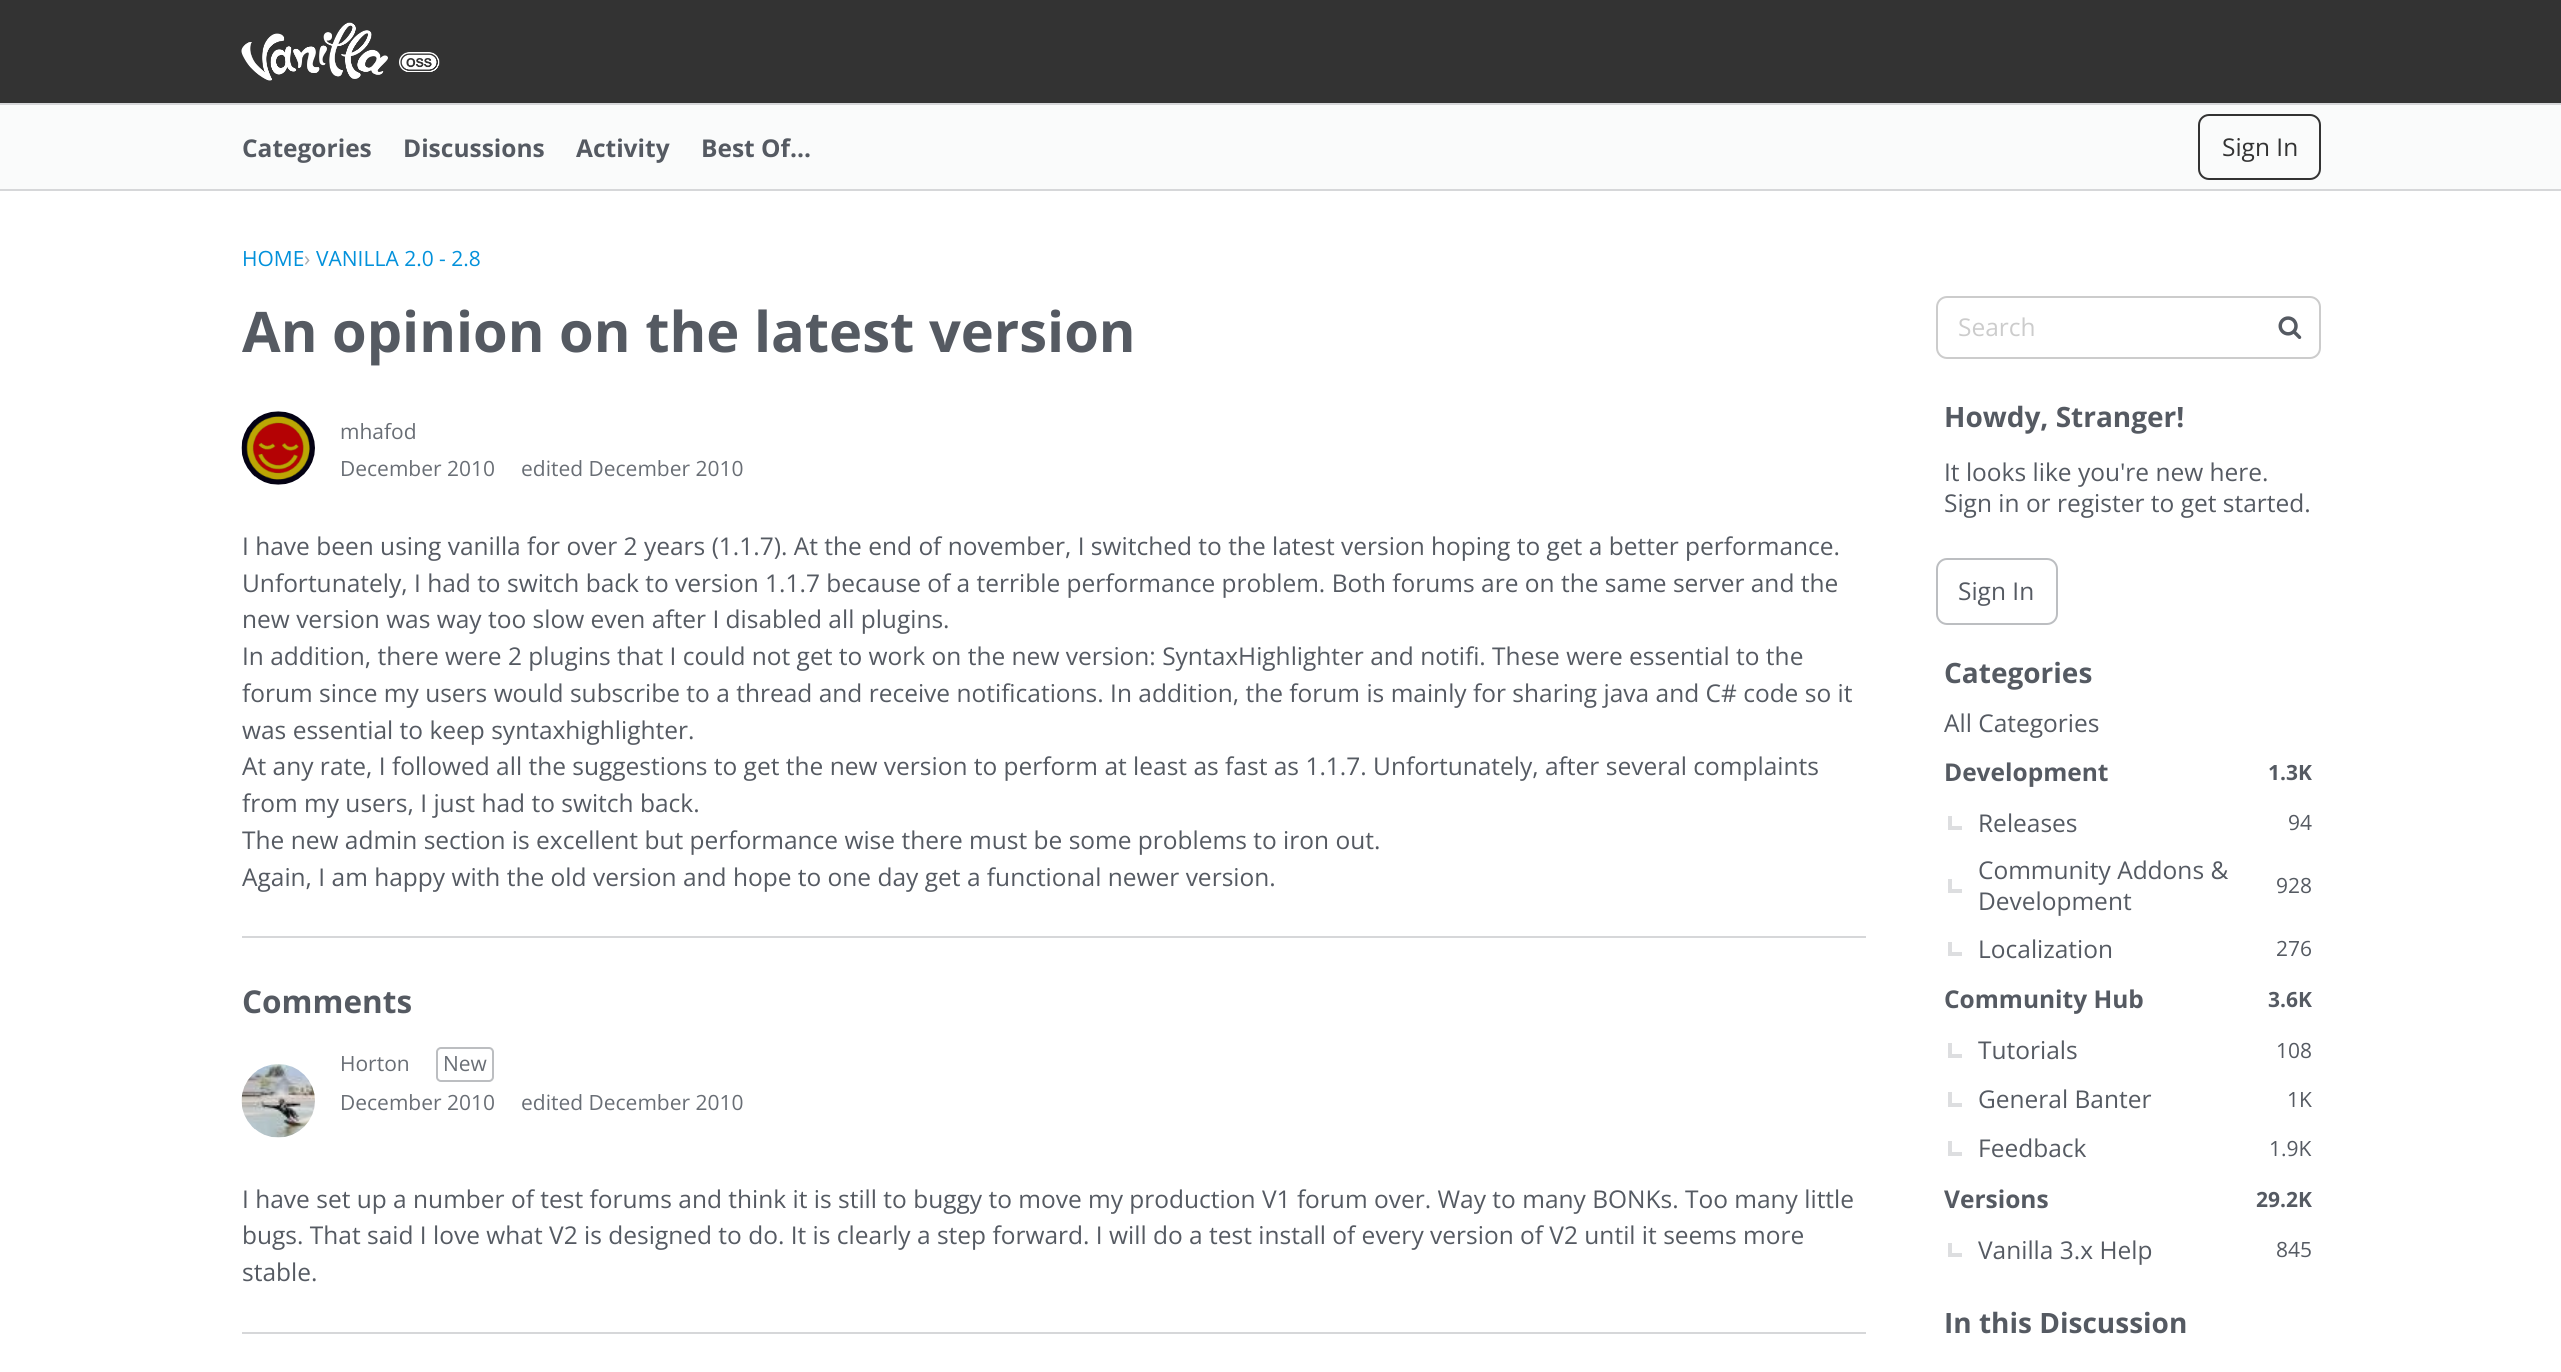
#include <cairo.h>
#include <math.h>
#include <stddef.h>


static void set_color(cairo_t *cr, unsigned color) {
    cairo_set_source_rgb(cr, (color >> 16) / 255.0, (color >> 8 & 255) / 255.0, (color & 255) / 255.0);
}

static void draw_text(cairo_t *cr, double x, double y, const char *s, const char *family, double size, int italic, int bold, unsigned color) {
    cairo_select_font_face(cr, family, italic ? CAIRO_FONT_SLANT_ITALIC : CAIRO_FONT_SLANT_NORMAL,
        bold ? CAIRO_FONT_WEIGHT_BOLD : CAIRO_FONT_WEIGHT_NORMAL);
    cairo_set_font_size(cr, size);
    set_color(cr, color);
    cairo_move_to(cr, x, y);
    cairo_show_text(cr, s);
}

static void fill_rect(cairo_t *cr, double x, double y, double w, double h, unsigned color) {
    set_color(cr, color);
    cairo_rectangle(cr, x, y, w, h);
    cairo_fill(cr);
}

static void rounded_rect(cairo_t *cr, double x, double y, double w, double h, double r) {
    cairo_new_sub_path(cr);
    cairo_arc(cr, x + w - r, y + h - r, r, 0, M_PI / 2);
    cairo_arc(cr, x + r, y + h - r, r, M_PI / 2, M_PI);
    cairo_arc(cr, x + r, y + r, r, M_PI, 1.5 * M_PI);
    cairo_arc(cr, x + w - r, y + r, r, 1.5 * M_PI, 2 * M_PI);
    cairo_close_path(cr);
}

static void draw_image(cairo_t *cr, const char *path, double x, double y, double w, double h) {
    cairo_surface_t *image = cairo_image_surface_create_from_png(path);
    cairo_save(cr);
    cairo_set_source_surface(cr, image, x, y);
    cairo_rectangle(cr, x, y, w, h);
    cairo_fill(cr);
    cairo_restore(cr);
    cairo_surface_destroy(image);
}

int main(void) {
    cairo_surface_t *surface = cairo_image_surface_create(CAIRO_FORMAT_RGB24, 2561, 1372);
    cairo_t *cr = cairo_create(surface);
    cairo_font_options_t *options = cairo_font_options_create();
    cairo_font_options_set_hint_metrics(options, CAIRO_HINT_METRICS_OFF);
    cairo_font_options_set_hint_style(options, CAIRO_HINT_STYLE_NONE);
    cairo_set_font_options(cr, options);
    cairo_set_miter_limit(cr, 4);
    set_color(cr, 0xFFFFFF);
    cairo_paint(cr);
    fill_rect(cr, 0, 0, 2561, 103, 0x333333);
    fill_rect(cr, 0, 103, 2561, 2, 0xD6D7D9);
    draw_image(cr, "assets/img1.png", 241, 22, 199, 59);
    fill_rect(cr, 0, 105, 2561, 84, 0xFAFBFB);
    fill_rect(cr, 0, 189, 2561, 2, 0xD6D7D9);
    draw_text(cr, 242, 157, "Categories", "Open Sans", 24.5, 0, 1, 0x555A62);
    draw_text(cr, 403, 157, "Discussions", "Open Sans", 24.5, 0, 1, 0x555A62);
    draw_text(cr, 576, 157, "Activity", "Open Sans", 24.5, 0, 1, 0x555A62);
    draw_text(cr, 701, 157, "Best Of...", "Open Sans", 24.5, 0, 1, 0x555A62);
    rounded_rect(cr, 2199, 115, 121, 64, 10);
    set_color(cr, 0x333333);
    cairo_stroke(cr);
    draw_text(cr, 2222, 156, "Sign In", "Open Sans", 24.5, 0, 0, 0x333333);
    draw_text(cr, 242, 266, "HOME", "Open Sans", 21, 0, 0, 0x0291DB);
    draw_text(cr, 304, 266, "›", "Open Sans", 21, 0, 0, 0xAAADB1);
    draw_text(cr, 316, 266, "VANILLA 2.0 - 2.8", "Open Sans", 21, 0, 0, 0x0291DB);
    draw_text(cr, 242, 352, "An opinion on the latest version", "Open Sans", 56, 0, 1, 0x555A62);
    fill_rect(cr, 242, 936, 1624, 2, 0xD6D7D9);
    draw_image(cr, "assets/img2.png", 241, 411, 74, 74);
    draw_text(cr, 340, 439, "mhafod", "Open Sans", 21, 0, 0, 0x696E75);
    draw_text(cr, 340, 476, "December 2010", "Open Sans", 21, 0, 0, 0x696E75);
    draw_text(cr, 521, 476, "edited December 2010", "Open Sans", 21, 0, 0, 0x696E75);
    draw_text(cr, 242, 555, "I have been using vanilla for over 2 years (1.1.7). At the end of november, I switched to the latest version hoping to get a better performance.", "Open Sans", 24.5, 0, 0, 0x555A62);
    draw_text(cr, 242, 592, "Unfortunately, I had to switch back to version 1.1.7 because of a terrible performance problem. Both forums are on the same server and the", "Open Sans", 24.5, 0, 0, 0x555A62);
    draw_text(cr, 242, 628, "new version was way too slow even after I disabled all plugins.", "Open Sans", 24.5, 0, 0, 0x555A62);
    draw_text(cr, 242, 665, "In addition, there were 2 plugins that I could not get to work on the new version: SyntaxHighlighter and notifi. These were essential to the", "Open Sans", 24.5, 0, 0, 0x555A62);
    draw_text(cr, 242, 702, "forum since my users would subscribe to a thread and receive notifications. In addition, the forum is mainly for sharing java and C# code so it", "Open Sans", 24.5, 0, 0, 0x555A62);
    draw_text(cr, 242, 739, "was essential to keep syntaxhighlighter.", "Open Sans", 24.5, 0, 0, 0x555A62);
    draw_text(cr, 242, 775, "At any rate, I followed all the suggestions to get the new version to perform at least as fast as 1.1.7. Unfortunately, after several complaints", "Open Sans", 24.5, 0, 0, 0x555A62);
    draw_text(cr, 242, 812, "from my users, I just had to switch back.", "Open Sans", 24.5, 0, 0, 0x555A62);
    draw_text(cr, 242, 849, "The new admin section is excellent but performance wise there must be some problems to iron out.", "Open Sans", 24.5, 0, 0, 0x555A62);
    draw_text(cr, 242, 886, "Again, I am happy with the old version and hope to one day get a functional newer version.", "Open Sans", 24.5, 0, 0, 0x555A62);
    draw_text(cr, 242, 1013, "Comments", "Open Sans", 31.5, 0, 1, 0x555A62);
    fill_rect(cr, 242, 1332, 1624, 2, 0xD6D7D9);
    draw_image(cr, "assets/img3.png", 241, 1064, 74, 74);
    draw_text(cr, 340, 1071, "Horton", "Open Sans", 21, 0, 0, 0x696E75);
    rounded_rect(cr, 437, 1048, 56, 33, 4);
    set_color(cr, 0xBCBEC1);
    cairo_stroke(cr);
    draw_text(cr, 443, 1071, "New", "Open Sans", 21, 0, 0, 0x696E75);
    draw_text(cr, 340, 1110, "December 2010", "Open Sans", 21, 0, 0, 0x696E75);
    draw_text(cr, 521, 1110, "edited December 2010", "Open Sans", 21, 0, 0, 0x696E75);
    draw_text(cr, 242, 1208, "I have set up a number of test forums and think it is still to buggy to move my production V1 forum over. Way to many BONKs. Too many little", "Open Sans", 24.5, 0, 0, 0x555A62);
    draw_text(cr, 242, 1244, "bugs. That said I love what V2 is designed to do. It is clearly a step forward. I will do a test install of every version of V2 until it seems more", "Open Sans", 24.5, 0, 0, 0x555A62);
    draw_text(cr, 242, 1281, "stable.", "Open Sans", 24.5, 0, 0, 0x555A62);
    rounded_rect(cr, 1937, 297, 383, 61, 10);
    set_color(cr, 0xCCCCCC);
    cairo_stroke(cr);
    draw_text(cr, 1958, 336, "Search", "Open Sans", 24.5, 0, 0, 0xCCCCCC);
    draw_image(cr, "assets/img4.png", 2278, 316, 24, 23);
    draw_text(cr, 1944, 427, "Howdy, Stranger!", "Open Sans", 28, 0, 1, 0x555A62);
    draw_text(cr, 1944, 481, "It looks like you're new here.", "Open Sans", 24.5, 0, 0, 0x555A62);
    draw_text(cr, 1944, 512, "Sign in or register to get started.", "Open Sans", 24.5, 0, 0, 0x555A62);
    rounded_rect(cr, 1937, 559, 120, 65, 10);
    set_color(cr, 0xBCBEC1);
    cairo_stroke(cr);
    draw_text(cr, 1958, 600, "Sign In", "Open Sans", 24.5, 0, 0, 0x555A62);
    draw_text(cr, 1944, 683, "Categories", "Open Sans", 28, 0, 1, 0x555A62);
    draw_text(cr, 1944, 732, "All Categories", "Open Sans", 24.5, 0, 0, 0x555A62);
    draw_text(cr, 1944, 781, "Development", "Open Sans", 24.5, 0, 1, 0x555A62);
    draw_text(cr, 2268, 780, "1.3K", "Open Sans", 21, 0, 1, 0x555A62);
    fill_rect(cr, 1948, 826, 14, 4, 0xDDDEE0);
    fill_rect(cr, 1948, 816, 4, 14, 0xDDDEE0);
    draw_text(cr, 1978, 832, "Releases", "Open Sans", 24.5, 0, 0, 0x555A62);
    draw_text(cr, 2288, 830, "94", "Open Sans", 21, 0, 0, 0x555A62);
    fill_rect(cr, 1948, 889, 14, 4, 0xDDDEE0);
    fill_rect(cr, 1948, 879, 4, 14, 0xDDDEE0);
    draw_text(cr, 1978, 879, "Community Addons &", "Open Sans", 24.5, 0, 0, 0x555A62);
    draw_text(cr, 2276, 893, "928", "Open Sans", 21, 0, 0, 0x555A62);
    draw_text(cr, 1978, 910, "Development", "Open Sans", 24.5, 0, 0, 0x555A62);
    fill_rect(cr, 1948, 952, 14, 4, 0xDDDEE0);
    fill_rect(cr, 1948, 942, 4, 14, 0xDDDEE0);
    draw_text(cr, 1978, 958, "Localization", "Open Sans", 24.5, 0, 0, 0x555A62);
    draw_text(cr, 2276, 956, "276", "Open Sans", 21, 0, 0, 0x555A62);
    draw_text(cr, 1944, 1008, "Community Hub", "Open Sans", 24.5, 0, 1, 0x555A62);
    draw_text(cr, 2268, 1007, "3.6K", "Open Sans", 21, 0, 1, 0x555A62);
    fill_rect(cr, 1948, 1054, 14, 4, 0xDDDEE0);
    fill_rect(cr, 1948, 1043, 4, 14, 0xDDDEE0);
    draw_text(cr, 1978, 1059, "Tutorials", "Open Sans", 24.5, 0, 0, 0x555A62);
    draw_text(cr, 2276, 1058, "108", "Open Sans", 21, 0, 0, 0x555A62);
    fill_rect(cr, 1948, 1103, 14, 4, 0xDDDEE0);
    fill_rect(cr, 1948, 1092, 4, 14, 0xDDDEE0);
    draw_text(cr, 1978, 1108, "General Banter", "Open Sans", 24.5, 0, 0, 0x555A62);
    draw_text(cr, 2287, 1107, "1K", "Open Sans", 21, 0, 0, 0x555A62);
    fill_rect(cr, 1948, 1152, 14, 4, 0xDDDEE0);
    fill_rect(cr, 1948, 1141, 4, 14, 0xDDDEE0);
    draw_text(cr, 1978, 1157, "Feedback", "Open Sans", 24.5, 0, 0, 0x555A62);
    draw_text(cr, 2269, 1156, "1.9K", "Open Sans", 21, 0, 0, 0x555A62);
    draw_text(cr, 1944, 1208, "Versions", "Open Sans", 24.5, 0, 1, 0x555A62);
    draw_text(cr, 2256, 1207, "29.2K", "Open Sans", 21, 0, 1, 0x555A62);
    fill_rect(cr, 1948, 1253, 14, 4, 0xDDDEE0);
    fill_rect(cr, 1948, 1243, 4, 14, 0xDDDEE0);
    draw_text(cr, 1978, 1259, "Vanilla 3.x Help", "Open Sans", 24.5, 0, 0, 0x555A62);
    draw_text(cr, 2276, 1257, "845", "Open Sans", 21, 0, 0, 0x555A62);
    draw_text(cr, 1944, 1333, "In this Discussion", "Open Sans", 28, 0, 1, 0x555A62);
    cairo_surface_write_to_png(surface, "output.png");
    cairo_font_options_destroy(options);
    cairo_destroy(cr);
    cairo_surface_destroy(surface);
    return 0;
}
